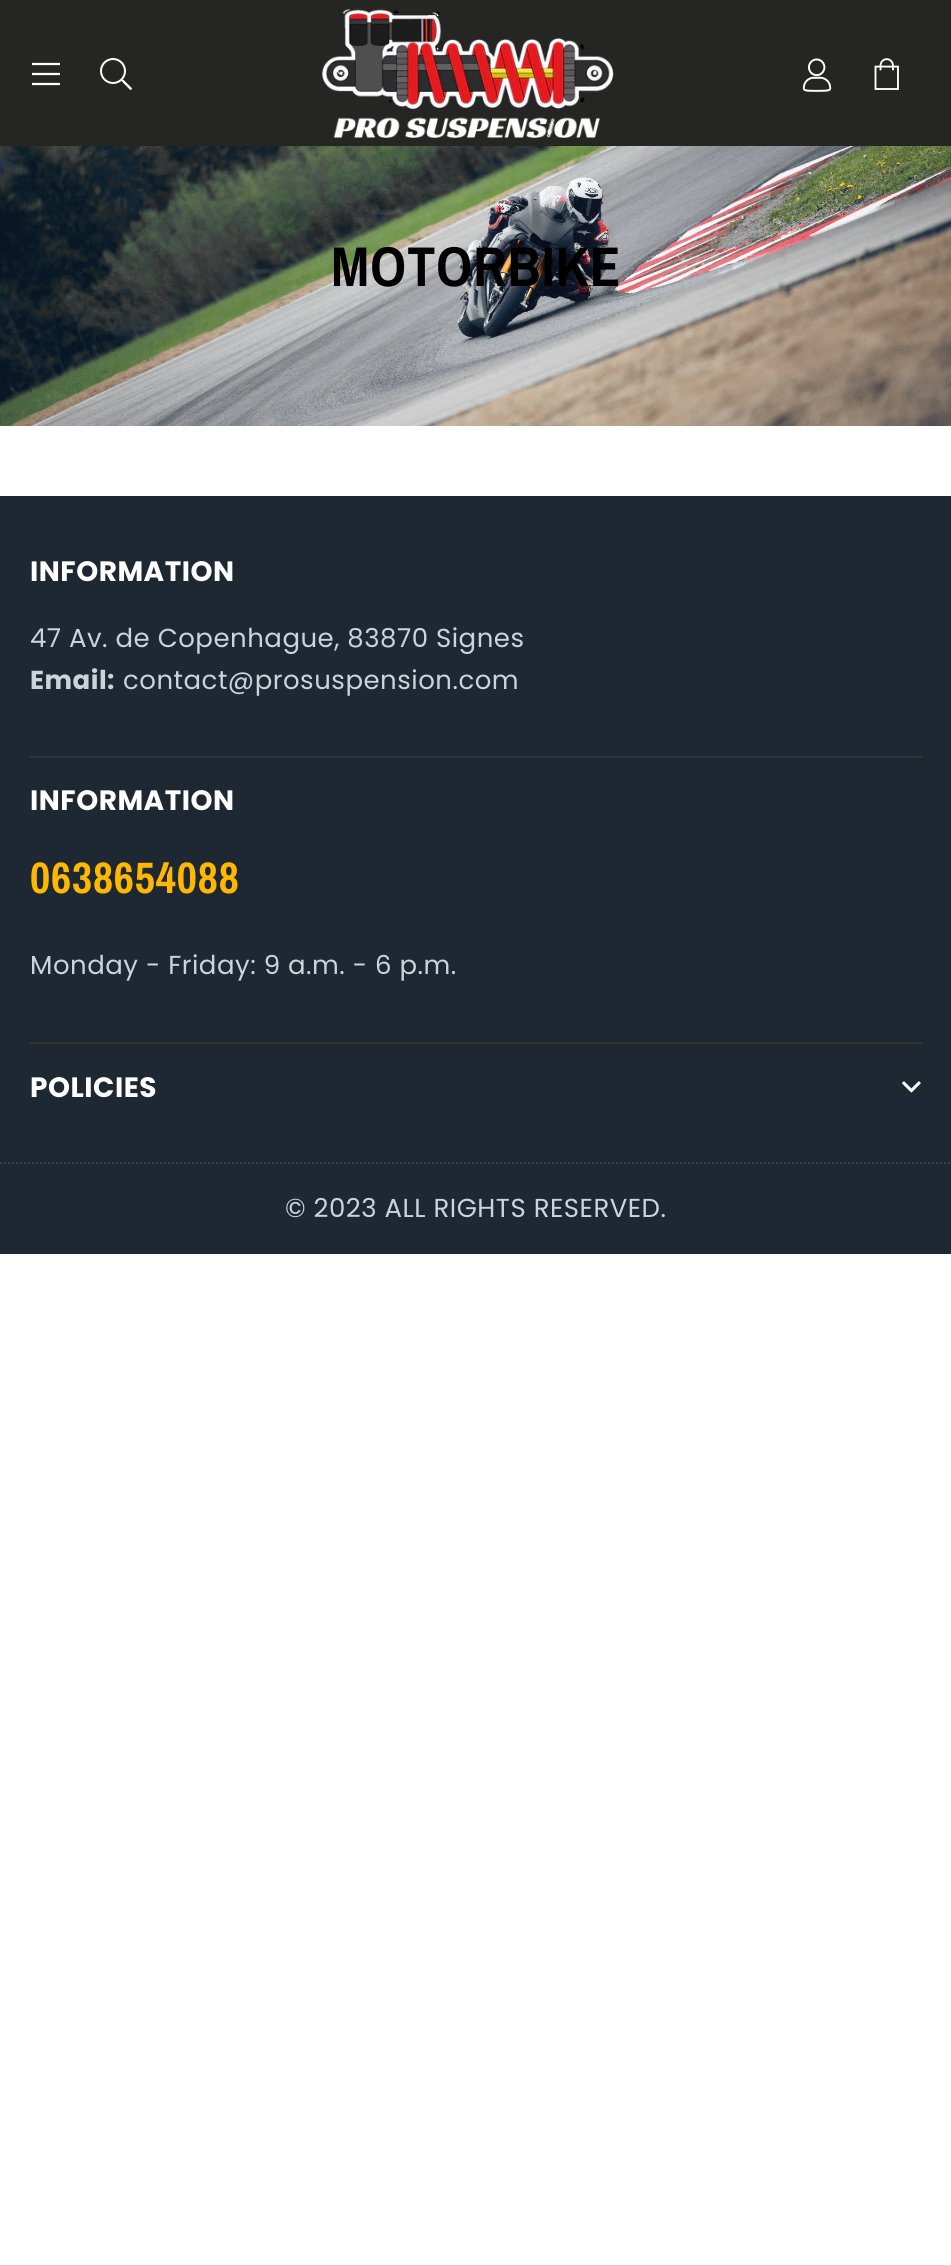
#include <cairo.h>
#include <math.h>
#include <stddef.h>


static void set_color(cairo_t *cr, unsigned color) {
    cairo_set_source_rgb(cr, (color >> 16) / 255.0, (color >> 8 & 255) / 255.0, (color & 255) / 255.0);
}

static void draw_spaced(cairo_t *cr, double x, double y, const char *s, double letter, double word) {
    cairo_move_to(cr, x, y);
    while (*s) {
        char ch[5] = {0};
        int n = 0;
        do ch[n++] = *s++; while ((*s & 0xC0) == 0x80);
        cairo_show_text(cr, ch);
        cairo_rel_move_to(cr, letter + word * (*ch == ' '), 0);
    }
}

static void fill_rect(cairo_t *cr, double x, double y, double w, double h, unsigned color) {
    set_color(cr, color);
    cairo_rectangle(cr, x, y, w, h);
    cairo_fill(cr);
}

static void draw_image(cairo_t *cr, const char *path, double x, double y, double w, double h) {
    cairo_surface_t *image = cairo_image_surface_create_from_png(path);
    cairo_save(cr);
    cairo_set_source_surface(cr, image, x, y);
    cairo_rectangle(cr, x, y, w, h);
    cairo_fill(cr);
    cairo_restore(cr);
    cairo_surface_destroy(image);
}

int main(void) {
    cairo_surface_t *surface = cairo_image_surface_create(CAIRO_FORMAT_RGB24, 951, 2265);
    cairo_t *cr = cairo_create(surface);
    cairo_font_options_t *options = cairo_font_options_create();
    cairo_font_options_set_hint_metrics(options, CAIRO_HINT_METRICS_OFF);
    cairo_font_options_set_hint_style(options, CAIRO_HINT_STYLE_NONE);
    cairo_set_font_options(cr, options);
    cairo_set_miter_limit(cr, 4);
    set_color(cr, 0xFFFFFF);
    cairo_paint(cr);
    fill_rect(cr, 0, 0, 951, 146, 0x252524);
    draw_image(cr, "assets/img1.png", 32, 62, 28, 24);
    draw_image(cr, "assets/img2.png", 100, 58, 32, 32);
    draw_image(cr, "assets/img3.png", 322, 8, 292, 130);
    draw_image(cr, "assets/img4.png", 802, 58, 30, 34);
    draw_image(cr, "assets/img5.png", 874, 58, 25, 32);
    draw_image(cr, "assets/img6.png", 0, 146, 951, 280);
    cairo_select_font_face(cr, "Archivo Narrow", CAIRO_FONT_SLANT_NORMAL, CAIRO_FONT_WEIGHT_BOLD);
    cairo_set_font_size(cr, 56);
    set_color(cr, 0x000000);
    draw_spaced(cr, 331, 286, "MOTORBIKE", 1.1, 0);
    fill_rect(cr, 0, 496, 951, 758, 0x1E2832);
    cairo_select_font_face(cr, "Poppins", CAIRO_FONT_SLANT_NORMAL, CAIRO_FONT_WEIGHT_BOLD);
    cairo_set_font_size(cr, 28);
    set_color(cr, 0xFFFFFF);
    draw_spaced(cr, 30, 581, "INFORMATION", 0.5, 0);
    cairo_select_font_face(cr, "Poppins", CAIRO_FONT_SLANT_NORMAL, CAIRO_FONT_WEIGHT_NORMAL);
    cairo_set_font_size(cr, 26);
    set_color(cr, 0xCBD4DC);
    draw_spaced(cr, 30, 647, "47 Av. de Copenhague, 83870 Signes", 0.5, 0);
    cairo_select_font_face(cr, "Poppins", CAIRO_FONT_SLANT_NORMAL, CAIRO_FONT_WEIGHT_BOLD);
    draw_spaced(cr, 30, 689, "Email:", 0.5, 0);
    cairo_select_font_face(cr, "Poppins", CAIRO_FONT_SLANT_NORMAL, CAIRO_FONT_WEIGHT_NORMAL);
    draw_spaced(cr, 123, 689, "contact@prosuspension.com", 0.5, 0);
    fill_rect(cr, 30, 756, 892, 2, 0x333333);
    cairo_select_font_face(cr, "Poppins", CAIRO_FONT_SLANT_NORMAL, CAIRO_FONT_WEIGHT_BOLD);
    cairo_set_font_size(cr, 28);
    set_color(cr, 0xFFFFFF);
    draw_spaced(cr, 30, 810, "INFORMATION", 0.5, 0);
    cairo_select_font_face(cr, "Archivo Narrow", CAIRO_FONT_SLANT_NORMAL, CAIRO_FONT_WEIGHT_BOLD);
    cairo_set_font_size(cr, 44);
    set_color(cr, 0xFFB700);
    draw_spaced(cr, 30, 893, "0638654088", 0.9, 0);
    cairo_select_font_face(cr, "Poppins", CAIRO_FONT_SLANT_NORMAL, CAIRO_FONT_WEIGHT_NORMAL);
    cairo_set_font_size(cr, 26);
    set_color(cr, 0xCBD4DC);
    draw_spaced(cr, 30, 974, "Monday - Friday: 9 a.m. - 6 p.m.", 0.5, 0);
    fill_rect(cr, 30, 1042, 892, 2, 0x333333);
    cairo_select_font_face(cr, "Poppins", CAIRO_FONT_SLANT_NORMAL, CAIRO_FONT_WEIGHT_BOLD);
    cairo_set_font_size(cr, 28);
    set_color(cr, 0xFFFFFF);
    draw_spaced(cr, 30, 1097, "POLICIES", 0.5, 0);
    draw_image(cr, "assets/img7.png", 902, 1081, 19, 12);
    cairo_new_path(cr);
    cairo_move_to(cr, 0, 1163);
    cairo_line_to(cr, 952, 1163);
    set_color(cr, 0x3B4045);
    cairo_set_dash(cr, (double[]){2, 2}, 2, 0);
    cairo_stroke(cr);
    cairo_select_font_face(cr, "Poppins", CAIRO_FONT_SLANT_NORMAL, CAIRO_FONT_WEIGHT_NORMAL);
    cairo_set_font_size(cr, 26);
    set_color(cr, 0xCBD4DC);
    draw_spaced(cr, 285, 1217, "© 2023 ALL RIGHTS RESERVED.", 0.5, 0);
    cairo_surface_write_to_png(surface, "output.png");
    cairo_font_options_destroy(options);
    cairo_destroy(cr);
    cairo_surface_destroy(surface);
    return 0;
}
